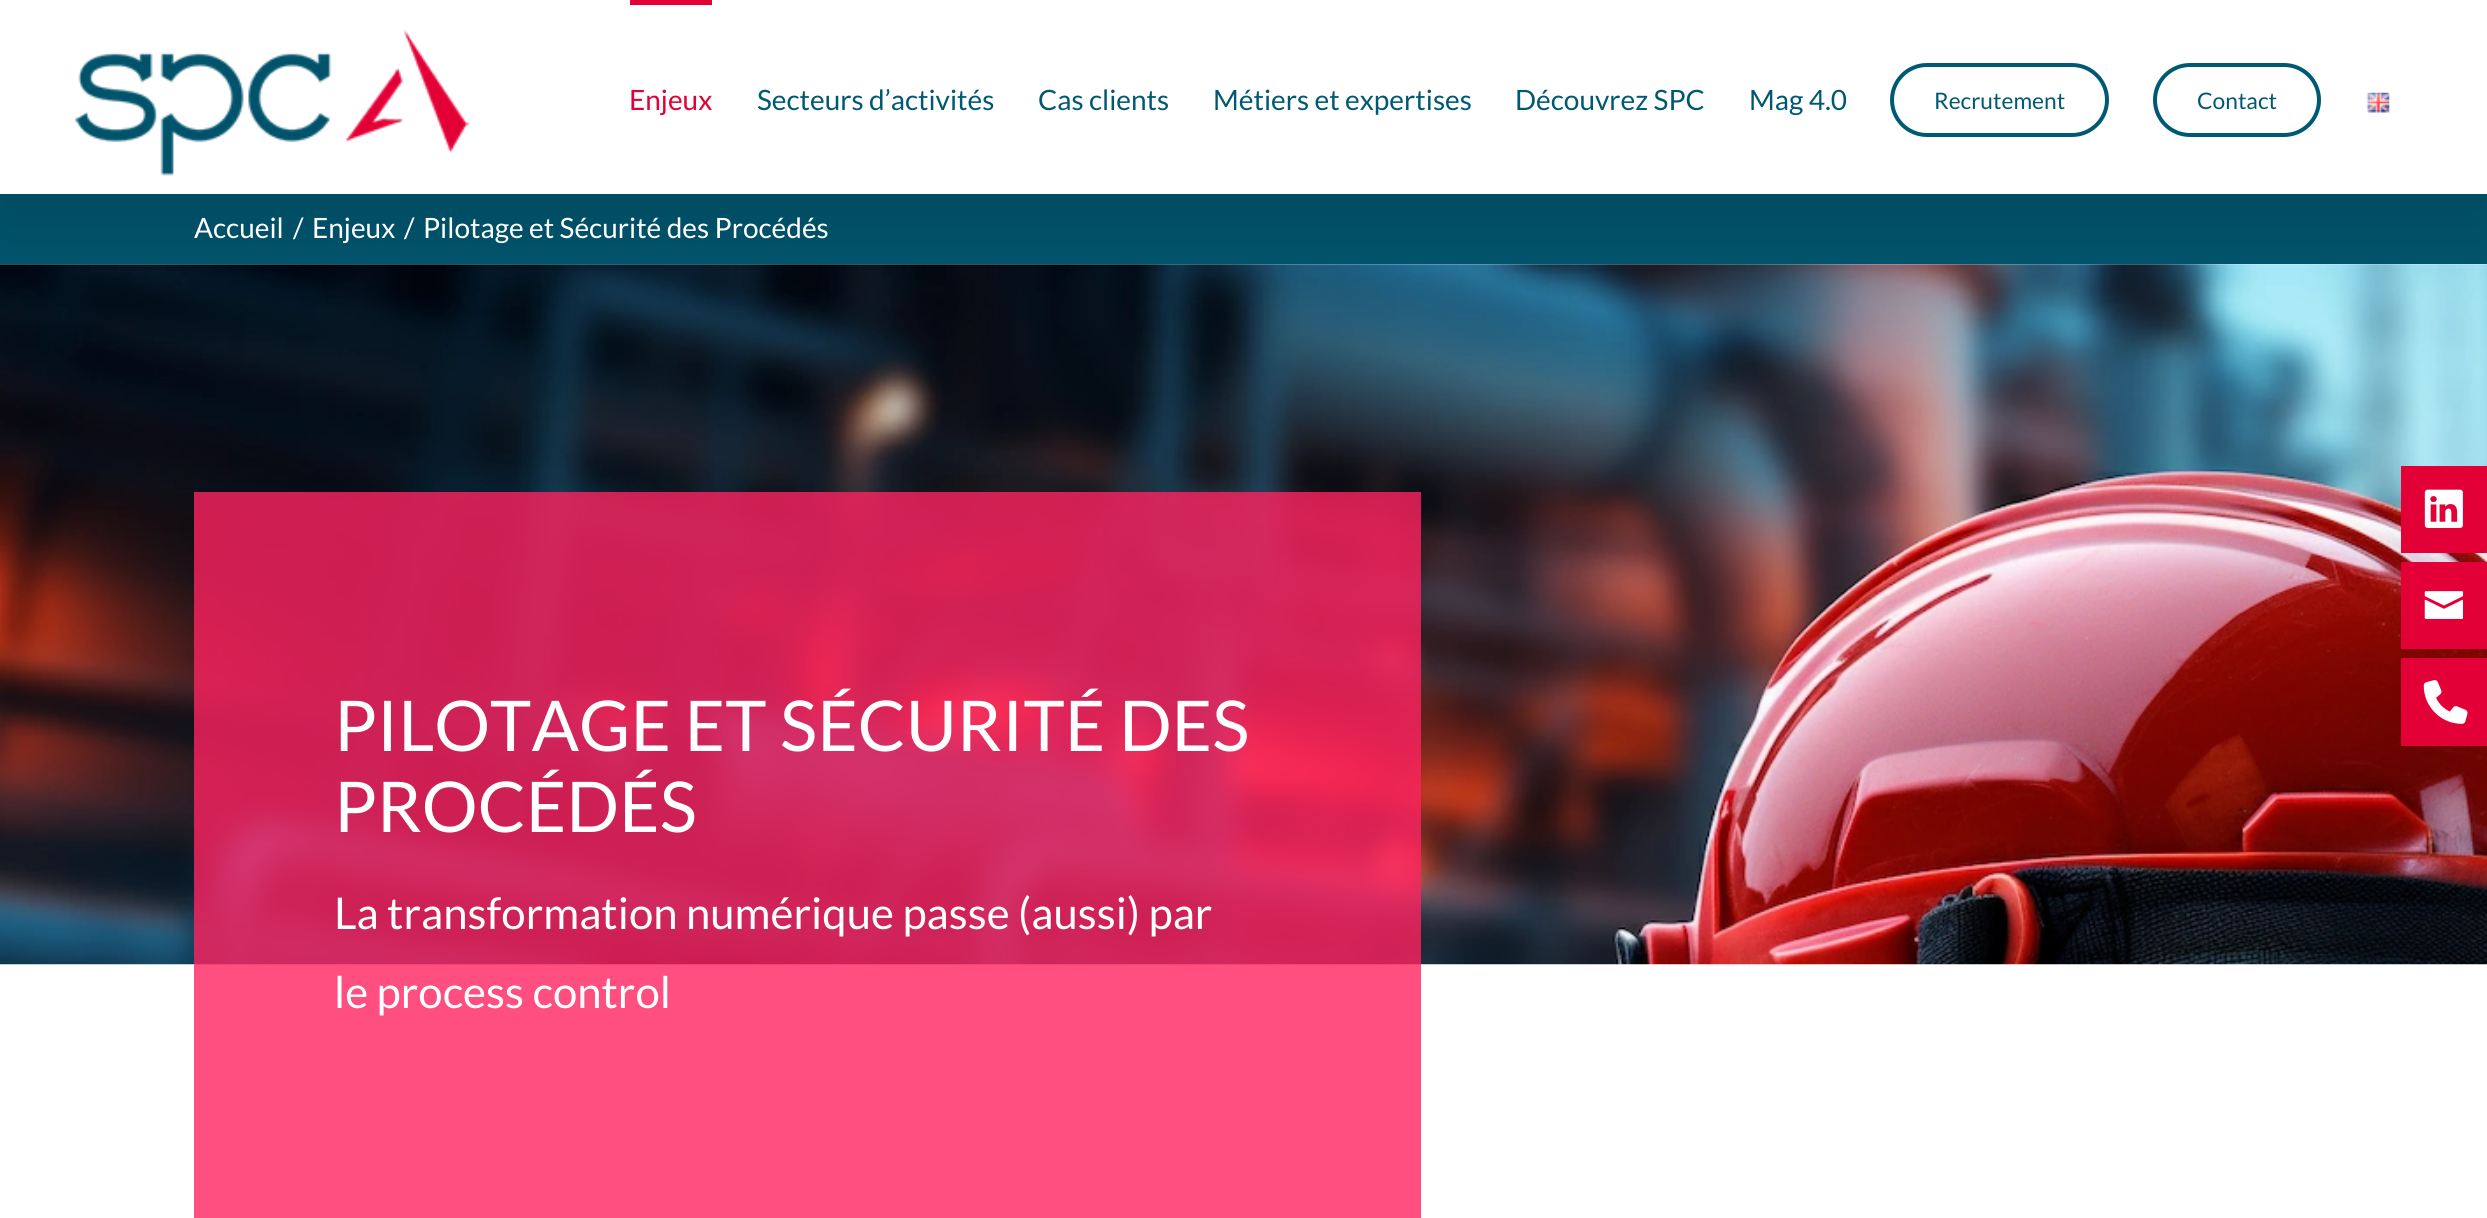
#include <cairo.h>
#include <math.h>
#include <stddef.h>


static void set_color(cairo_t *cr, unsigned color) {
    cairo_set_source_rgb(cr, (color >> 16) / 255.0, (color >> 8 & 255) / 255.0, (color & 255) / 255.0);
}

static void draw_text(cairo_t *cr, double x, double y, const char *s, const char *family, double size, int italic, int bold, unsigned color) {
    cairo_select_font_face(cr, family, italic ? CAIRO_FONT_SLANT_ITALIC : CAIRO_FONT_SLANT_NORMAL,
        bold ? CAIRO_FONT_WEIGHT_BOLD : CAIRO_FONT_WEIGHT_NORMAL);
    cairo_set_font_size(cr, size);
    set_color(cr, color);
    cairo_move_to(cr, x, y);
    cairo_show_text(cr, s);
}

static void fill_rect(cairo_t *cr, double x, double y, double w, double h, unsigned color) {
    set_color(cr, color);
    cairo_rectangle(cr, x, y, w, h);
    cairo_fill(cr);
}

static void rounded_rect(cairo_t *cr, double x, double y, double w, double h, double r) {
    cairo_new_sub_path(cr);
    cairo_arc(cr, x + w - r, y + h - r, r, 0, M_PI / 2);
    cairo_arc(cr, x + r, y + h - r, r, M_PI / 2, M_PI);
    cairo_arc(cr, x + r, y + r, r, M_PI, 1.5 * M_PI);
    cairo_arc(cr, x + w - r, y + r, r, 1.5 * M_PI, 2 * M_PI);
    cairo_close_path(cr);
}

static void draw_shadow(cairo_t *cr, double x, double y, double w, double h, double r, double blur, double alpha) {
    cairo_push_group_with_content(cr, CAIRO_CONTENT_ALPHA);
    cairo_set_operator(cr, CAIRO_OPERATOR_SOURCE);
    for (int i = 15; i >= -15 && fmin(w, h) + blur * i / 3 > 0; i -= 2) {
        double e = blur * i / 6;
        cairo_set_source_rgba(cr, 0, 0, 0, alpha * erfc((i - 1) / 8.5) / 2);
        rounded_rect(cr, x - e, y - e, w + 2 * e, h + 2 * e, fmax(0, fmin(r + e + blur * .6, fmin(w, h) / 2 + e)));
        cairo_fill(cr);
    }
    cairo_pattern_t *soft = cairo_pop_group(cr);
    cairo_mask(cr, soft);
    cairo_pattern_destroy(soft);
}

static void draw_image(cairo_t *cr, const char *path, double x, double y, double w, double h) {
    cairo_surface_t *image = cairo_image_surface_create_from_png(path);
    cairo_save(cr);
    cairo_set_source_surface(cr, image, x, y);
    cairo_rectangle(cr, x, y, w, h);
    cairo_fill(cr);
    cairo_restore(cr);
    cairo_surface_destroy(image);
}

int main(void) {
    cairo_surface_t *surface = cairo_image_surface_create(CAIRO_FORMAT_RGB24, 2487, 1218);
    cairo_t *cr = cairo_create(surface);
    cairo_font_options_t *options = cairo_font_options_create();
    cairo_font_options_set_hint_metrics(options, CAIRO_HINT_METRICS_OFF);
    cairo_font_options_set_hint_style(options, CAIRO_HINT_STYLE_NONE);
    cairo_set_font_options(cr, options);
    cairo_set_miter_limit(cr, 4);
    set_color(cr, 0xFFFFFF);
    cairo_paint(cr);
    fill_rect(cr, 0, 194, 2487, 70, 0x00536B);
    draw_image(cr, "assets/img3.png", 0, 264, 2487, 701);
    cairo_save(cr);
    cairo_rectangle(cr, 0, 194, 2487, 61);
    cairo_clip(cr);
    set_color(cr, 0x000000);
    draw_shadow(cr, 4, 21, 2481, 187, 0, 44, 0.14);
    cairo_restore(cr);
    draw_image(cr, "assets/img1.png", 74, 29, 396, 147);
    fill_rect(cr, 630, 0, 82, 5, 0xE20036);
    draw_text(cr, 629, 110, "Enjeux", "Lato", 28, 0, 0, 0xE20036);
    draw_text(cr, 757, 110, "Secteurs d’activités", "Lato", 28, 0, 0, 0x005972);
    draw_text(cr, 1038, 110, "Cas clients", "Lato", 28, 0, 0, 0x005972);
    draw_text(cr, 1213, 110, "Métiers et expertises", "Lato", 28, 0, 0, 0x005972);
    draw_text(cr, 1515, 110, "Découvrez SPC", "Lato", 28, 0, 0, 0x005972);
    draw_text(cr, 1749, 110, "Mag 4.0", "Lato", 28, 0, 0, 0x005972);
    rounded_rect(cr, 1892, 65, 215, 70, 35);
    cairo_set_line_width(cr, 4);
    cairo_stroke(cr);
    draw_text(cr, 1934, 109, "Recrutement", "Lato", 22.75, 0, 0, 0x005972);
    rounded_rect(cr, 2155, 65, 164, 70, 35);
    cairo_stroke(cr);
    draw_text(cr, 2197, 109, "Contact", "Lato", 22.75, 0, 0, 0x005972);
    draw_image(cr, "assets/img2.png", 2366, 92, 24, 21);
    draw_text(cr, 194, 238, "Accueil", "Lato", 28, 0, 0, 0xFFFFFF);
    draw_text(cr, 293, 238, "/", "Lato", 28, 0, 0, 0xFFFFFF);
    draw_text(cr, 312, 238, "Enjeux", "Lato", 28, 0, 0, 0xFFFFFF);
    draw_text(cr, 404, 238, "/", "Lato", 28, 0, 0, 0xFFFFFF);
    draw_text(cr, 423, 238, "Pilotage et Sécurité des Procédés", "Lato", 28, 0, 0, 0xFFFFFF);
    cairo_set_source_rgba(cr, 1, 0.133, 0.38, 0.8);
    cairo_rectangle(cr, 194, 492, 1227, 726);
    cairo_fill(cr);
    draw_text(cr, 334, 751, "PILOTAGE ET SÉCURITÉ DES", "Lato", 70, 0, 0, 0xFFFFFF);
    draw_text(cr, 334, 832, "PROCÉDÉS", "Lato", 70, 0, 0, 0xFFFFFF);
    draw_text(cr, 334, 929, "La transformation numérique passe (aussi) par", "Lato", 43.75, 0, 0, 0xFFFFFF);
    draw_text(cr, 334, 1008, "le process control", "Lato", 43.75, 0, 0, 0xFFFFFF);
    fill_rect(cr, 2401, 466, 86, 87, 0xE20036);
    draw_image(cr, "assets/img4.png", 2424, 489, 39, 39);
    fill_rect(cr, 2401, 562, 86, 87, 0xE20036);
    draw_image(cr, "assets/img5.png", 2424, 591, 40, 28);
    fill_rect(cr, 2401, 658, 86, 88, 0xE20036);
    draw_image(cr, "assets/img6.png", 2423, 680, 45, 44);
    cairo_surface_write_to_png(surface, "output.png");
    cairo_font_options_destroy(options);
    cairo_destroy(cr);
    cairo_surface_destroy(surface);
    return 0;
}
